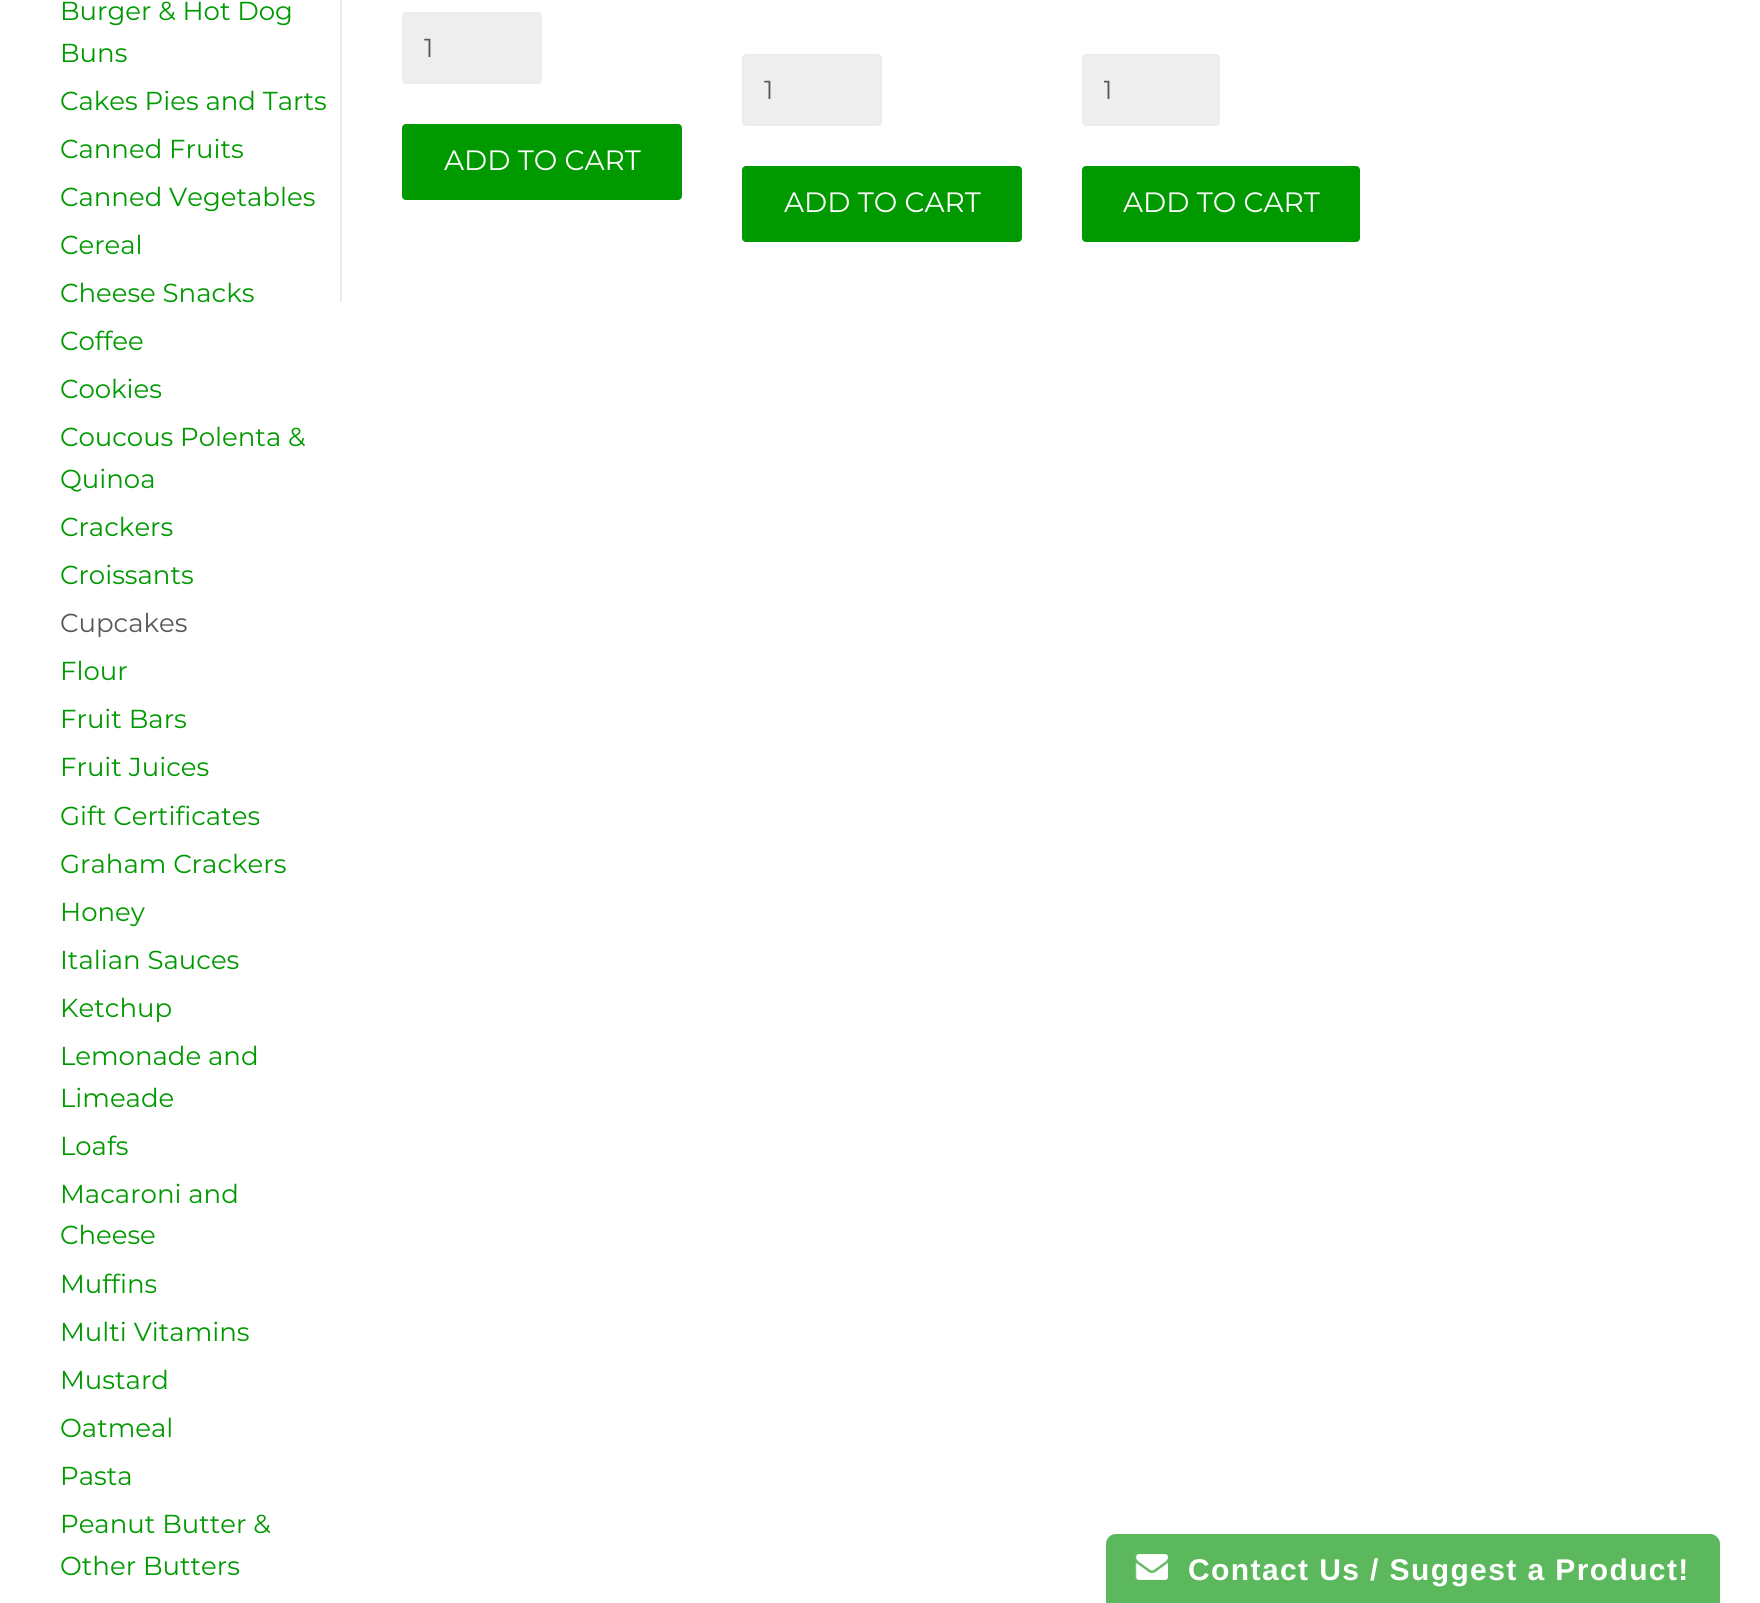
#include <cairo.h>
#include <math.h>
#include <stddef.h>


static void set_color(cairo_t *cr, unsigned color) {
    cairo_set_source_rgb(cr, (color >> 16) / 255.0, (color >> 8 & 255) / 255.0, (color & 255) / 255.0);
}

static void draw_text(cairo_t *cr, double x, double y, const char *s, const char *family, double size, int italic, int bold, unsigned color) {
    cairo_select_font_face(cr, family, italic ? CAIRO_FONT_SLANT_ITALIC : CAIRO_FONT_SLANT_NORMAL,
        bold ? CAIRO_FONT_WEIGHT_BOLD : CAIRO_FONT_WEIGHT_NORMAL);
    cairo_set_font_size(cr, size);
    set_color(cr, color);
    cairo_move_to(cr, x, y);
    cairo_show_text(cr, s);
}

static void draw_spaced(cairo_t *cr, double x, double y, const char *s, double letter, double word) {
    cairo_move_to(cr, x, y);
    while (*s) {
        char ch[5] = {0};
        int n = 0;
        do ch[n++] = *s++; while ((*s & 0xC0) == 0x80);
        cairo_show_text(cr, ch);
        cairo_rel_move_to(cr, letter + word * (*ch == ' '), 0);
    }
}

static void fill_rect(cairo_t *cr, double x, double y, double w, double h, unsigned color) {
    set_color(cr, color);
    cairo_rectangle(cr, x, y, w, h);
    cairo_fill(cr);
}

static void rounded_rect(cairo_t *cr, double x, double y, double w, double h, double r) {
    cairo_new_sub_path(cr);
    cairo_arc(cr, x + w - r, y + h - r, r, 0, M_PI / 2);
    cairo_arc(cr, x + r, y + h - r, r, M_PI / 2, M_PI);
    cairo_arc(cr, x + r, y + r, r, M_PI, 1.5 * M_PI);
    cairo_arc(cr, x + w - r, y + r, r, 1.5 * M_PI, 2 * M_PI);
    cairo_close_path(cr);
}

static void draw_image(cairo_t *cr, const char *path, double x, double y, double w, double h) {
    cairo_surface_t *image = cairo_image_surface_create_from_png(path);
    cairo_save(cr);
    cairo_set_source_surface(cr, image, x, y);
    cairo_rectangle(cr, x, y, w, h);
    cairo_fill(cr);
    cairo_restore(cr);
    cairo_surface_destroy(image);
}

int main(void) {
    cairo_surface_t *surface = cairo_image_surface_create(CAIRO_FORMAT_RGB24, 1760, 1603);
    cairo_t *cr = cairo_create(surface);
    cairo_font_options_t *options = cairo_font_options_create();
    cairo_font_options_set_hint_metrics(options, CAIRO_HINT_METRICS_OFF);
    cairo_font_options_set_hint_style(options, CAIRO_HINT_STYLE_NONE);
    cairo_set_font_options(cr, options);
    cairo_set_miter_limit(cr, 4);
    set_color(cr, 0xFFFFFF);
    cairo_paint(cr);
    draw_text(cr, 60, 20, "Burger & Hot Dog", "Montserrat", 26, 0, 0, 0x009900);
    draw_text(cr, 60, 62, "Buns", "Montserrat", 26, 0, 0, 0x009900);
    draw_text(cr, 60, 110, "Cakes Pies and Tarts", "Montserrat", 26, 0, 0, 0x009900);
    draw_text(cr, 60, 158, "Canned Fruits", "Montserrat", 26, 0, 0, 0x009900);
    draw_text(cr, 60, 206, "Canned Vegetables", "Montserrat", 26, 0, 0, 0x009900);
    draw_text(cr, 60, 254, "Cereal", "Montserrat", 26, 0, 0, 0x009900);
    draw_text(cr, 60, 302, "Cheese Snacks", "Montserrat", 26, 0, 0, 0x009900);
    draw_text(cr, 60, 350, "Coffee", "Montserrat", 26, 0, 0, 0x009900);
    draw_text(cr, 60, 398, "Cookies", "Montserrat", 26, 0, 0, 0x009900);
    draw_text(cr, 60, 446, "Coucous Polenta &", "Montserrat", 26, 0, 0, 0x009900);
    draw_text(cr, 60, 488, "Quinoa", "Montserrat", 26, 0, 0, 0x009900);
    draw_text(cr, 60, 536, "Crackers", "Montserrat", 26, 0, 0, 0x009900);
    draw_text(cr, 60, 584, "Croissants", "Montserrat", 26, 0, 0, 0x009900);
    draw_text(cr, 60, 632, "Cupcakes", "Montserrat", 26, 0, 0, 0x585858);
    draw_text(cr, 60, 680, "Flour", "Montserrat", 26, 0, 0, 0x009900);
    draw_text(cr, 60, 728, "Fruit Bars", "Montserrat", 26, 0, 0, 0x009900);
    draw_text(cr, 60, 776, "Fruit Juices", "Montserrat", 26, 0, 0, 0x009900);
    draw_text(cr, 60, 825, "Gift Certificates", "Montserrat", 26, 0, 0, 0x009900);
    draw_text(cr, 60, 873, "Graham Crackers", "Montserrat", 26, 0, 0, 0x009900);
    draw_text(cr, 60, 921, "Honey", "Montserrat", 26, 0, 0, 0x009900);
    draw_text(cr, 60, 969, "Italian Sauces", "Montserrat", 26, 0, 0, 0x009900);
    draw_text(cr, 60, 1017, "Ketchup", "Montserrat", 26, 0, 0, 0x009900);
    draw_text(cr, 60, 1065, "Lemonade and", "Montserrat", 26, 0, 0, 0x009900);
    draw_text(cr, 60, 1107, "Limeade", "Montserrat", 26, 0, 0, 0x009900);
    draw_text(cr, 60, 1155, "Loafs", "Montserrat", 26, 0, 0, 0x009900);
    draw_text(cr, 60, 1203, "Macaroni and", "Montserrat", 26, 0, 0, 0x009900);
    draw_text(cr, 60, 1244, "Cheese", "Montserrat", 26, 0, 0, 0x009900);
    draw_text(cr, 60, 1293, "Muffins", "Montserrat", 26, 0, 0, 0x009900);
    draw_text(cr, 60, 1341, "Multi Vitamins", "Montserrat", 26, 0, 0, 0x009900);
    draw_text(cr, 60, 1389, "Mustard", "Montserrat", 26, 0, 0, 0x009900);
    draw_text(cr, 60, 1437, "Oatmeal", "Montserrat", 26, 0, 0, 0x009900);
    draw_text(cr, 60, 1485, "Pasta", "Montserrat", 26, 0, 0, 0x009900);
    draw_text(cr, 60, 1533, "Peanut Butter &", "Montserrat", 26, 0, 0, 0x009900);
    draw_text(cr, 60, 1575, "Other Butters", "Montserrat", 26, 0, 0, 0x009900);
    fill_rect(cr, 340, 0, 2, 302, 0xECECEC);
    set_color(cr, 0xEEEEEE);
    rounded_rect(cr, 403, 13, 138, 70, 3);
    cairo_fill_preserve(cr);
    set_color(cr, 0xECECEC);
    cairo_stroke(cr);
    draw_text(cr, 424, 57, "1", "Montserrat", 26, 0, 0, 0x585858);
    set_color(cr, 0x009900);
    rounded_rect(cr, 402, 124, 280, 76, 4);
    cairo_fill(cr);
    draw_text(cr, 444, 170, "ADD TO CART", "Montserrat", 28, 0, 0, 0xFFFFFF);
    set_color(cr, 0xEEEEEE);
    rounded_rect(cr, 743, 55, 138, 70, 3);
    cairo_fill_preserve(cr);
    set_color(cr, 0xECECEC);
    cairo_stroke(cr);
    draw_text(cr, 764, 99, "1", "Montserrat", 26, 0, 0, 0x585858);
    set_color(cr, 0x009900);
    rounded_rect(cr, 742, 166, 280, 76, 4);
    cairo_fill(cr);
    draw_text(cr, 784, 212, "ADD TO CART", "Montserrat", 28, 0, 0, 0xFFFFFF);
    set_color(cr, 0xEEEEEE);
    rounded_rect(cr, 1083, 55, 136, 70, 3);
    cairo_fill_preserve(cr);
    set_color(cr, 0xECECEC);
    cairo_stroke(cr);
    cairo_save(cr);
    cairo_rectangle(cr, 1104, 72, 94, 36);
    cairo_clip(cr);
    draw_text(cr, 1103, 99, "1", "Montserrat", 26, 0, 0, 0x585858);
    cairo_restore(cr);
    set_color(cr, 0x009900);
    rounded_rect(cr, 1082, 166, 278, 76, 4);
    cairo_fill(cr);
    draw_text(cr, 1123, 212, "ADD TO CART", "Montserrat", 28, 0, 0, 0xFFFFFF);
    set_color(cr, 0x5CB85C);
    cairo_new_path(cr);
    cairo_move_to(cr, 1116, 1534);
    cairo_line_to(cr, 1710, 1534);
    cairo_curve_to(cr, 1715.5, 1534, 1720, 1538.5, 1720, 1544);
    cairo_line_to(cr, 1720, 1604);
    cairo_line_to(cr, 1106, 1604);
    cairo_line_to(cr, 1106, 1544);
    cairo_curve_to(cr, 1106, 1538.5, 1110.5, 1534, 1116, 1534);
    cairo_close_path(cr);
    cairo_fill(cr);
    draw_image(cr, "assets/img1.png", 1135, 1554, 34, 26);
    cairo_select_font_face(cr, "Liberation Sans", CAIRO_FONT_SLANT_NORMAL, CAIRO_FONT_WEIGHT_BOLD);
    cairo_set_font_size(cr, 30);
    set_color(cr, 0xFFFFFF);
    draw_spaced(cr, 1188, 1580, "Contact Us / Suggest a Product!", 1.4, 0);
    cairo_surface_write_to_png(surface, "output.png");
    cairo_font_options_destroy(options);
    cairo_destroy(cr);
    cairo_surface_destroy(surface);
    return 0;
}
